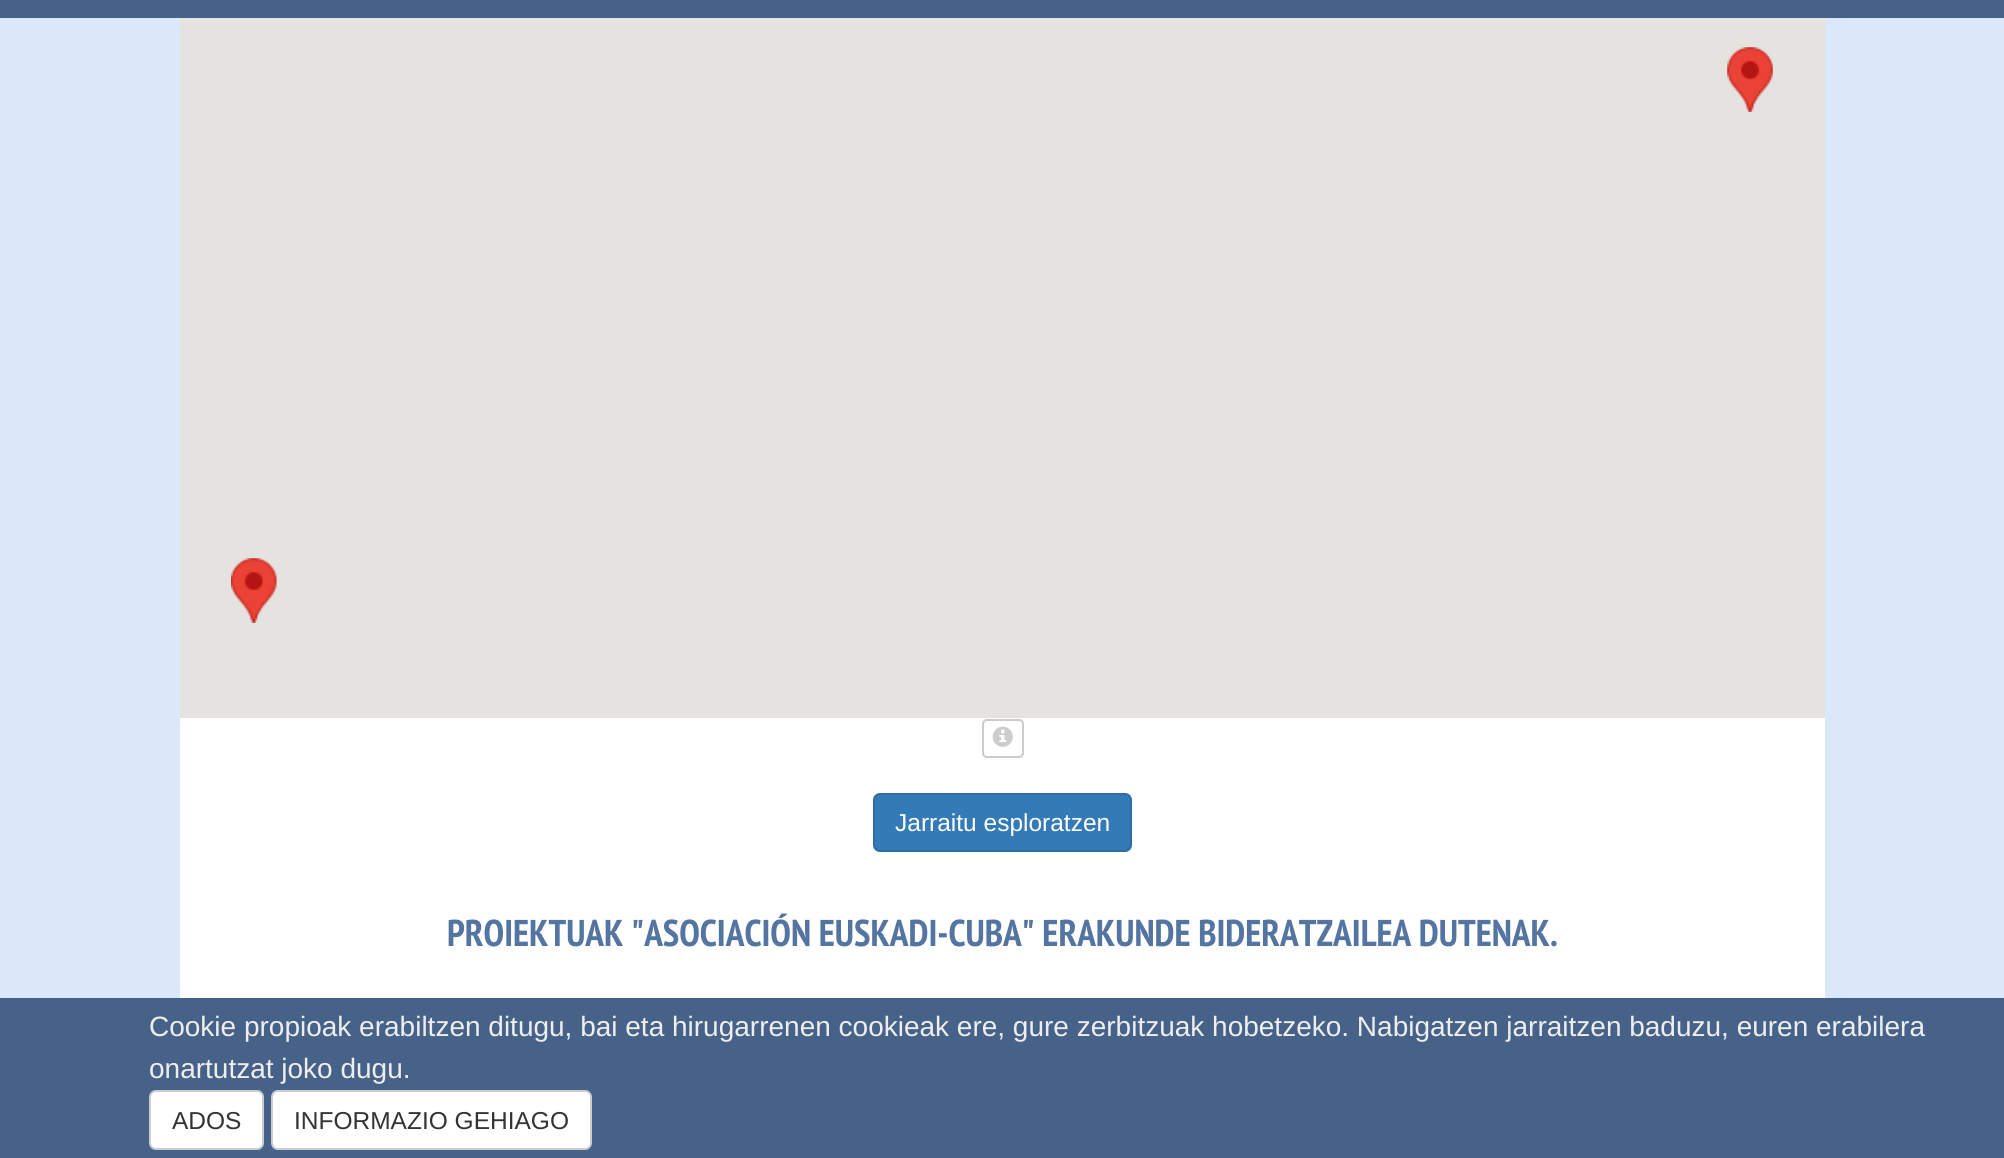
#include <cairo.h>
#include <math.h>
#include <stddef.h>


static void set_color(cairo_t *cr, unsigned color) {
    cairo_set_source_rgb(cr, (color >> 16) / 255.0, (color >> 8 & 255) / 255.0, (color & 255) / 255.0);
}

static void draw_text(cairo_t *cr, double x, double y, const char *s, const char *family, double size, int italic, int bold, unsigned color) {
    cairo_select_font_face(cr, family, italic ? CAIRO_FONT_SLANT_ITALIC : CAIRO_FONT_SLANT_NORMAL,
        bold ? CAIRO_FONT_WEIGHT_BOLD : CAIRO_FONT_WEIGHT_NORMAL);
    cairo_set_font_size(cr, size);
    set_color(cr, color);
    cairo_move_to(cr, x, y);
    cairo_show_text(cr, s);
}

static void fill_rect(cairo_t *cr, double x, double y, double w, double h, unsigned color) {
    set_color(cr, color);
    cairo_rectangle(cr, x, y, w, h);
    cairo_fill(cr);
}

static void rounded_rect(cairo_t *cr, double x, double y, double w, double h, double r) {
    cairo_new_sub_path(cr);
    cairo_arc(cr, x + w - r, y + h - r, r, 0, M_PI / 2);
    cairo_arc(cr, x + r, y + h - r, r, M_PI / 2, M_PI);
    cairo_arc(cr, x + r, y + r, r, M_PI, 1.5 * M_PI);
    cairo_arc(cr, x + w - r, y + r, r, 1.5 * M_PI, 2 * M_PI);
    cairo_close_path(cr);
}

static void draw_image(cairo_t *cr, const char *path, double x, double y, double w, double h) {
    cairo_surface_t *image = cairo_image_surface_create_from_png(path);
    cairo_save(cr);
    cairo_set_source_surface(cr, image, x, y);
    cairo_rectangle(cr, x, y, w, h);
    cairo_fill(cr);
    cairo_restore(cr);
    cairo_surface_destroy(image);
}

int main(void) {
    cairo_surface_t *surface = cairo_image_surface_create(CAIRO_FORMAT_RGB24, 2004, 1158);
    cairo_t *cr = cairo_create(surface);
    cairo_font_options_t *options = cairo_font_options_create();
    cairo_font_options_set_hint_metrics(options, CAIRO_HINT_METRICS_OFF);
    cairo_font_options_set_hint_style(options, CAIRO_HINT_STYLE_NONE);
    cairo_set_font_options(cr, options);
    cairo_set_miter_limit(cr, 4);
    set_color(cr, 0xDBE8F9);
    cairo_paint(cr);
    fill_rect(cr, 0, 0, 2004, 18, 0x466289);
    fill_rect(cr, 180, 718, 1645, 280, 0xFFFFFF);
    fill_rect(cr, 180, 18, 1645, 700, 0xE5E3DF);
    draw_image(cr, "assets/img1.png", 1727, 47, 46, 65);
    draw_image(cr, "assets/img2.png", 231, 558, 46, 65);
    rounded_rect(cr, 983, 720, 40, 37, 4);
    set_color(cr, 0xCCCCCC);
    cairo_stroke(cr);
    draw_image(cr, "assets/img3.png", 992, 726, 21, 21);
    set_color(cr, 0x337AB7);
    rounded_rect(cr, 874, 794, 257, 57, 6);
    cairo_fill_preserve(cr);
    set_color(cr, 0x2E6DA4);
    cairo_stroke(cr);
    draw_text(cr, 895, 831, "Jarraitu esploratzen", "Liberation Sans", 24.5, 0, 0, 0xFFFFFF);
    draw_text(cr, 447, 946, "PROIEKTUAK \"ASOCIACIÓN EUSKADI-CUBA\" ERAKUNDE BIDERATZAILEA DUTENAK.", "PT Sans Narrow", 37.3, 0, 1, 0x5475A2);
    fill_rect(cr, 0, 998, 2004, 160, 0x466289);
    draw_text(cr, 149, 1036, "Cookie propioak erabiltzen ditugu, bai eta hirugarrenen cookieak ere, gure zerbitzuak hobetzeko. Nabigatzen jarraitzen baduzu, euren erabilera", "Liberation Sans", 28, 0, 0, 0xEEEEEE);
    draw_text(cr, 149, 1078, "onartutzat joko dugu.", "Liberation Sans", 28, 0, 0, 0xEEEEEE);
    set_color(cr, 0xFFFFFF);
    rounded_rect(cr, 150, 1091, 113, 58, 6);
    cairo_fill_preserve(cr);
    set_color(cr, 0xCCCCCC);
    cairo_stroke(cr);
    draw_text(cr, 172, 1129, "ADOS", "Liberation Sans", 24.5, 0, 0, 0x333333);
    set_color(cr, 0xFFFFFF);
    rounded_rect(cr, 272, 1091, 319, 58, 6);
    cairo_fill_preserve(cr);
    set_color(cr, 0xCCCCCC);
    cairo_stroke(cr);
    draw_text(cr, 294, 1129, "INFORMAZIO GEHIAGO", "Liberation Sans", 24.5, 0, 0, 0x333333);
    cairo_surface_write_to_png(surface, "output.png");
    cairo_font_options_destroy(options);
    cairo_destroy(cr);
    cairo_surface_destroy(surface);
    return 0;
}
